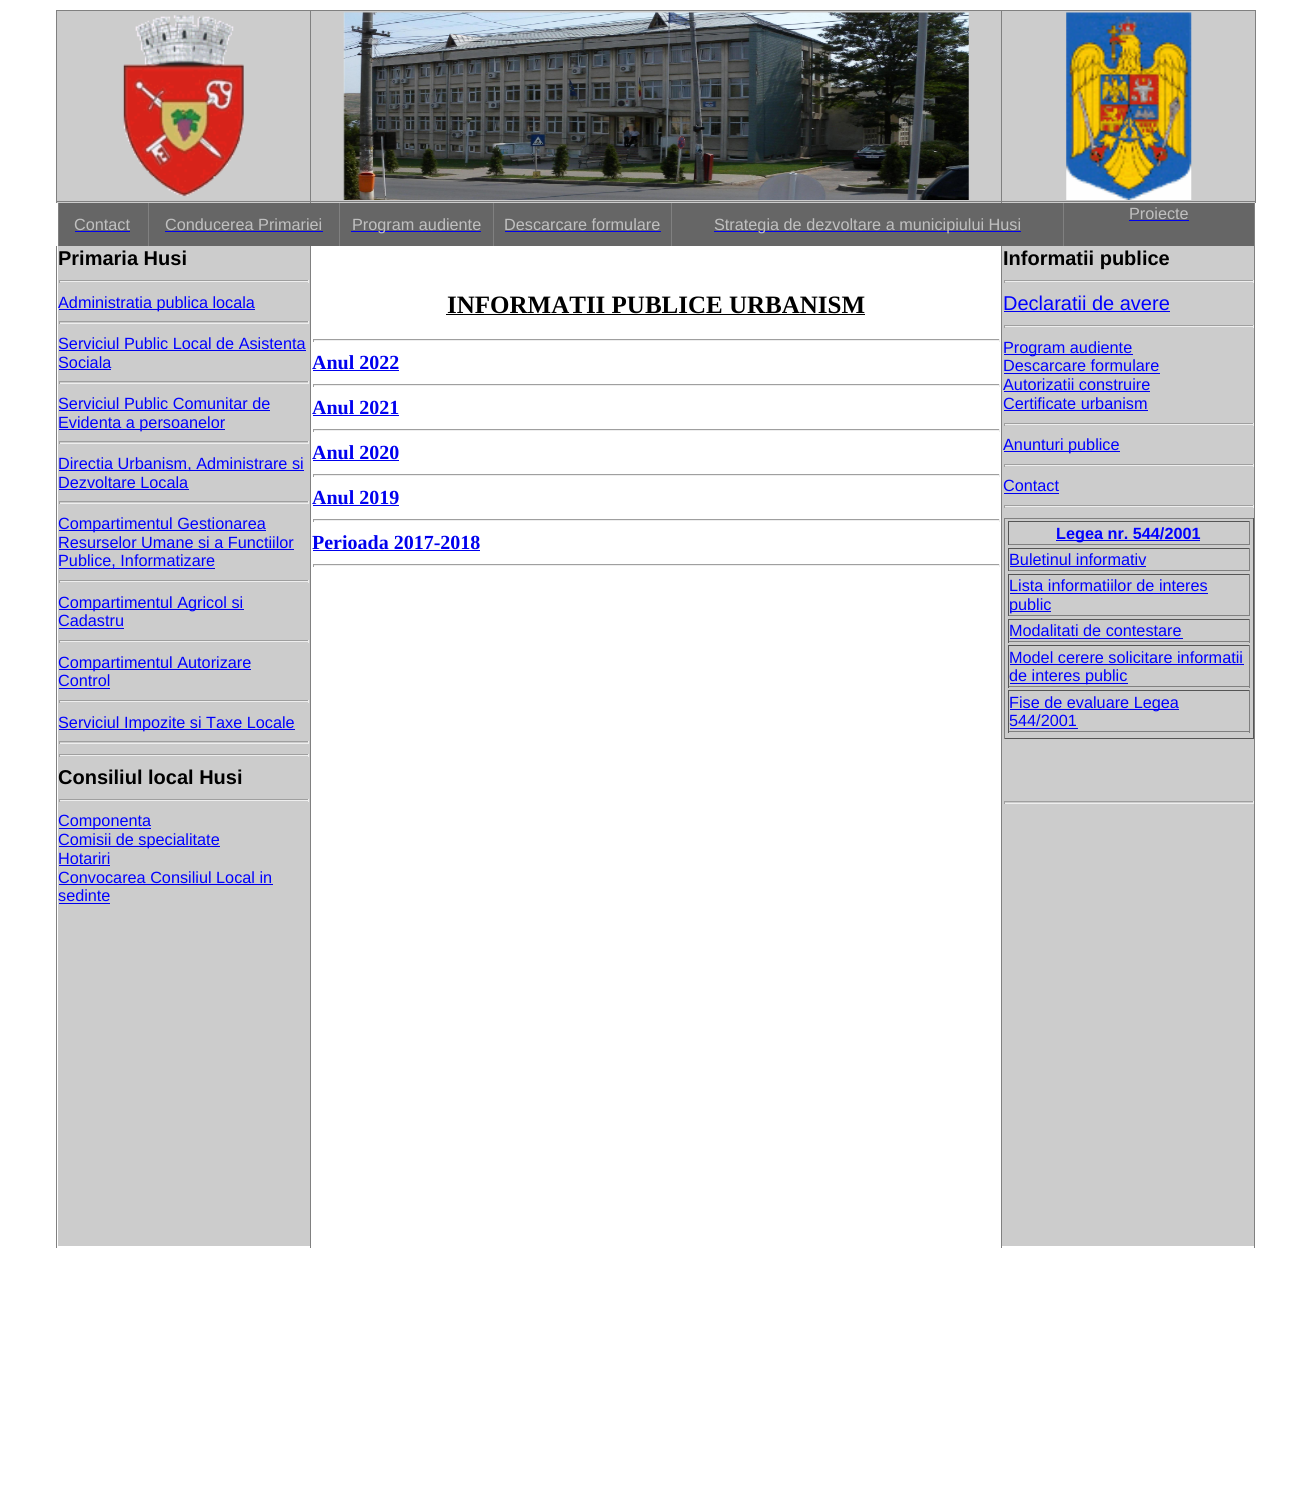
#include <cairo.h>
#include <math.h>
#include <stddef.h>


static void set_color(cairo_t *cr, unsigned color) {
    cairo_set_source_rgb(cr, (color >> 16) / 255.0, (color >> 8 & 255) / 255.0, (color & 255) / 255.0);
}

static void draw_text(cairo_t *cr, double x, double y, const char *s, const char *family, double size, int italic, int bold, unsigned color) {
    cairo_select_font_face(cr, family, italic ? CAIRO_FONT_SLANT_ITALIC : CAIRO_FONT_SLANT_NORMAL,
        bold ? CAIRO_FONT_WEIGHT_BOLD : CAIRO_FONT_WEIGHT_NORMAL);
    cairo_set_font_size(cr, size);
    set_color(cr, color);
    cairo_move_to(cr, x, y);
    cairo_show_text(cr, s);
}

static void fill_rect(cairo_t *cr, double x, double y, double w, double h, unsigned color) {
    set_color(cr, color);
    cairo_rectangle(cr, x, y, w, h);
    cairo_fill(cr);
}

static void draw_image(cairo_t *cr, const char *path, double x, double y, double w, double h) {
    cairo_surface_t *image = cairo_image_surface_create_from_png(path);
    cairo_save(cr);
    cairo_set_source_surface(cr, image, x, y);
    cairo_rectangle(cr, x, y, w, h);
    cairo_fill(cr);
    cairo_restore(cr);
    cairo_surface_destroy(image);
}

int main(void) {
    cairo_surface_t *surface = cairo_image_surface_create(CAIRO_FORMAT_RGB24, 1311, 1489);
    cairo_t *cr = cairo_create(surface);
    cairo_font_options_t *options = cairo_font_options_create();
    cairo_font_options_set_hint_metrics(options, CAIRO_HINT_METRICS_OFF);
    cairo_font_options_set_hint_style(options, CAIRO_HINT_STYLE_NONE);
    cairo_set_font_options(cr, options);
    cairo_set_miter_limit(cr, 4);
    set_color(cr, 0xFFFFFF);
    cairo_paint(cr);
    fill_rect(cr, 57, 11, 1198, 192, 0xCCCCCC);
    fill_rect(cr, 56, 10, 1200, 1, 0x808080);
    fill_rect(cr, 1255, 10, 1, 193, 0x808080);
    fill_rect(cr, 56, 201, 1200, 1, 0x808080);
    fill_rect(cr, 56, 10, 1, 193, 0x808080);
    draw_image(cr, "assets/img1.png", 123, 15, 121, 182);
    fill_rect(cr, 310, 10, 1, 193, 0x808080);
    draw_image(cr, "assets/img2.png", 343, 12, 626, 188);
    fill_rect(cr, 1001, 10, 1, 193, 0x808080);
    draw_image(cr, "assets/img3.png", 1066, 12, 126, 188);
    fill_rect(cr, 59, 203, 1195, 43, 0x666666);
    fill_rect(cr, 1254, 203, 1, 1045, 0x808080);
    fill_rect(cr, 1063, 203, 1, 45, 0x808080);
    draw_text(cr, 1129, 219, "Proiecte", "Liberation Sans", 16.25, 0, 0, 0xC0C0C0);
    fill_rect(cr, 1129, 220, 60, 1, 0x0000EE);
    fill_rect(cr, 58, 203, 1, 45, 0x808080);
    draw_text(cr, 74, 230, "Contact", "Liberation Sans", 16.25, 0, 0, 0xC0C0C0);
    fill_rect(cr, 75, 231, 55, 1, 0x0000EE);
    fill_rect(cr, 148, 203, 1, 45, 0x808080);
    draw_text(cr, 165, 230, "Conducerea Primariei", "Liberation Sans", 16.25, 0, 0, 0xC0C0C0);
    fill_rect(cr, 165, 231, 158, 1, 0x0000EE);
    fill_rect(cr, 339, 203, 1, 45, 0x808080);
    fill_rect(cr, 351, 231, 130, 1, 0x0000EE);
    draw_text(cr, 352, 230, "Program audiente", "Liberation Sans", 16.25, 0, 0, 0xC0C0C0);
    fill_rect(cr, 493, 203, 1, 45, 0x808080);
    draw_text(cr, 504, 230, "Descarcare formulare", "Liberation Sans", 16.25, 0, 0, 0xC0C0C0);
    fill_rect(cr, 505, 231, 156, 1, 0x0000EE);
    fill_rect(cr, 671, 203, 1, 45, 0x808080);
    fill_rect(cr, 714, 231, 307, 1, 0x0000EE);
    draw_text(cr, 714, 230, "Strategia de dezvoltare a municipiului Husi", "Liberation Sans", 16.25, 0, 0, 0xC0C0C0);
    fill_rect(cr, 58, 246, 1196, 1000, 0xCCCCCC);
    fill_rect(cr, 56, 246, 1, 1002, 0x808080);
    draw_text(cr, 58, 265, "Primaria Husi", "Liberation Sans", 20, 0, 1, 0x000000);
    fill_rect(cr, 59, 280, 250, 1, 0x9F9F9F);
    fill_rect(cr, 308, 280, 1, 3, 0xEEEEEE);
    fill_rect(cr, 59, 281, 250, 1, 0xEEEEEE);
    fill_rect(cr, 59, 280, 1, 3, 0x9F9F9F);
    fill_rect(cr, 59, 309, 196, 1, 0x0000EE);
    draw_text(cr, 58, 308, "Administratia publica locala", "Liberation Sans", 16.25, 0, 0, 0x0000FF);
    fill_rect(cr, 59, 321, 250, 1, 0x9F9F9F);
    fill_rect(cr, 308, 321, 1, 3, 0xEEEEEE);
    fill_rect(cr, 59, 323, 250, 1, 0xEEEEEE);
    fill_rect(cr, 59, 321, 1, 3, 0x9F9F9F);
    draw_text(cr, 58, 349, "Serviciul Public Local de Asistenta", "Liberation Sans", 16.25, 0, 0, 0x0000FF);
    fill_rect(cr, 59, 350, 247, 1, 0x0000EE);
    draw_text(cr, 58, 368, "Sociala", "Liberation Sans", 16.25, 0, 0, 0x0000FF);
    fill_rect(cr, 59, 369, 52, 1, 0x0000EE);
    fill_rect(cr, 59, 381, 250, 1, 0x9F9F9F);
    fill_rect(cr, 308, 381, 1, 3, 0xEEEEEE);
    fill_rect(cr, 59, 383, 250, 1, 0xEEEEEE);
    fill_rect(cr, 59, 381, 1, 3, 0x9F9F9F);
    draw_text(cr, 58, 409, "Serviciul Public Comunitar de", "Liberation Sans", 16.25, 0, 0, 0x0000FF);
    fill_rect(cr, 59, 410, 211, 1, 0x0000EE);
    fill_rect(cr, 59, 429, 166, 1, 0x0000EE);
    draw_text(cr, 58, 428, "Evidenta a persoanelor", "Liberation Sans", 16.25, 0, 0, 0x0000FF);
    fill_rect(cr, 59, 441, 250, 1, 0x9F9F9F);
    fill_rect(cr, 308, 441, 1, 3, 0xEEEEEE);
    fill_rect(cr, 59, 443, 250, 1, 0xEEEEEE);
    fill_rect(cr, 59, 441, 1, 3, 0x9F9F9F);
    fill_rect(cr, 59, 470, 245, 1, 0x0000EE);
    draw_text(cr, 58, 469, "Directia Urbanism, Administrare si", "Liberation Sans", 16.25, 0, 0, 0x0000FF);
    draw_text(cr, 58, 488, "Dezvoltare Locala", "Liberation Sans", 16.25, 0, 0, 0x0000FF);
    fill_rect(cr, 59, 489, 130, 1, 0x0000EE);
    fill_rect(cr, 59, 501, 250, 1, 0x9F9F9F);
    fill_rect(cr, 308, 501, 1, 3, 0xEEEEEE);
    fill_rect(cr, 59, 503, 250, 1, 0xEEEEEE);
    fill_rect(cr, 59, 501, 1, 3, 0x9F9F9F);
    fill_rect(cr, 59, 530, 207, 1, 0x0000EE);
    draw_text(cr, 58, 529, "Compartimentul Gestionarea", "Liberation Sans", 16.25, 0, 0, 0x0000FF);
    draw_text(cr, 58, 548, "Resurselor Umane si a Functiilor", "Liberation Sans", 16.25, 0, 0, 0x0000FF);
    fill_rect(cr, 59, 549, 235, 1, 0x0000EE);
    fill_rect(cr, 59, 568, 156, 1, 0x0000EE);
    draw_text(cr, 58, 566, "Publice, Informatizare", "Liberation Sans", 16.25, 0, 0, 0x0000FF);
    fill_rect(cr, 59, 580, 250, 1, 0x9F9F9F);
    fill_rect(cr, 308, 580, 1, 3, 0xEEEEEE);
    fill_rect(cr, 59, 581, 250, 1, 0xEEEEEE);
    fill_rect(cr, 59, 580, 1, 3, 0x9F9F9F);
    fill_rect(cr, 59, 609, 185, 1, 0x0000EE);
    draw_text(cr, 58, 608, "Compartimentul Agricol si", "Liberation Sans", 16.25, 0, 0, 0x0000FF);
    draw_text(cr, 58, 626, "Cadastru", "Liberation Sans", 16.25, 0, 0, 0x0000FF);
    fill_rect(cr, 59, 628, 65, 1, 0x0000EE);
    fill_rect(cr, 59, 640, 250, 1, 0x9F9F9F);
    fill_rect(cr, 308, 640, 1, 3, 0xEEEEEE);
    fill_rect(cr, 59, 641, 250, 1, 0xEEEEEE);
    fill_rect(cr, 59, 640, 1, 3, 0x9F9F9F);
    fill_rect(cr, 59, 669, 192, 1, 0x0000EE);
    draw_text(cr, 58, 668, "Compartimentul Autorizare", "Liberation Sans", 16.25, 0, 0, 0x0000FF);
    draw_text(cr, 58, 686, "Control", "Liberation Sans", 16.25, 0, 0, 0x0000FF);
    fill_rect(cr, 59, 688, 51, 1, 0x0000EE);
    fill_rect(cr, 59, 700, 250, 1, 0x9F9F9F);
    fill_rect(cr, 308, 700, 1, 3, 0xEEEEEE);
    fill_rect(cr, 59, 701, 250, 1, 0xEEEEEE);
    fill_rect(cr, 59, 700, 1, 3, 0x9F9F9F);
    fill_rect(cr, 59, 729, 236, 1, 0x0000EE);
    draw_text(cr, 58, 728, "Serviciul Impozite si Taxe Locale", "Liberation Sans", 16.25, 0, 0, 0x0000FF);
    fill_rect(cr, 59, 741, 250, 1, 0x9F9F9F);
    fill_rect(cr, 308, 741, 1, 3, 0xEEEEEE);
    fill_rect(cr, 59, 743, 250, 1, 0xEEEEEE);
    fill_rect(cr, 59, 741, 1, 3, 0x9F9F9F);
    fill_rect(cr, 59, 754, 250, 1, 0x9F9F9F);
    fill_rect(cr, 308, 754, 1, 3, 0xEEEEEE);
    fill_rect(cr, 59, 755, 250, 1, 0xEEEEEE);
    fill_rect(cr, 59, 754, 1, 3, 0x9F9F9F);
    draw_text(cr, 58, 784, "Consiliul local Husi", "Liberation Sans", 20, 0, 1, 0x000000);
    fill_rect(cr, 59, 799, 250, 1, 0x9F9F9F);
    fill_rect(cr, 308, 799, 1, 3, 0xEEEEEE);
    fill_rect(cr, 59, 800, 250, 1, 0xEEEEEE);
    fill_rect(cr, 59, 799, 1, 3, 0x9F9F9F);
    fill_rect(cr, 59, 828, 92, 1, 0x0000EE);
    draw_text(cr, 58, 826, "Componenta", "Liberation Sans", 16.25, 0, 0, 0x0000FF);
    fill_rect(cr, 59, 846, 161, 1, 0x0000EE);
    draw_text(cr, 58, 845, "Comisii de specialitate", "Liberation Sans", 16.25, 0, 0, 0x0000FF);
    draw_text(cr, 58, 864, "Hotariri", "Liberation Sans", 16.25, 0, 0, 0x0000FF);
    fill_rect(cr, 59, 865, 51, 1, 0x0000EE);
    draw_text(cr, 58, 883, "Convocarea Consiliul Local in", "Liberation Sans", 16.25, 0, 0, 0x0000FF);
    fill_rect(cr, 59, 884, 214, 1, 0x0000EE);
    draw_text(cr, 58, 901, "sedinte", "Liberation Sans", 16.25, 0, 0, 0x0000FF);
    fill_rect(cr, 59, 903, 51, 1, 0x0000EE);
    fill_rect(cr, 311, 246, 690, 1000, 0xFFFFFF);
    fill_rect(cr, 310, 246, 1, 1002, 0x808080);
    draw_text(cr, 447, 313, "INFORMATII PUBLICE URBANISM", "Liberation Serif", 25, 0, 1, 0x000000);
    fill_rect(cr, 446, 314, 419, 1, 0x000000);
    fill_rect(cr, 313, 339, 687, 1, 0x9F9F9F);
    fill_rect(cr, 999, 339, 1, 3, 0xEEEEEE);
    fill_rect(cr, 313, 340, 687, 1, 0xEEEEEE);
    fill_rect(cr, 313, 339, 1, 3, 0x9F9F9F);
    draw_text(cr, 312, 369, "Anul 2022", "Liberation Serif", 20, 0, 1, 0x0000EE);
    fill_rect(cr, 313, 370, 86, 1, 0x0000EE);
    fill_rect(cr, 313, 384, 687, 1, 0x9F9F9F);
    fill_rect(cr, 999, 384, 1, 3, 0xEEEEEE);
    fill_rect(cr, 313, 385, 687, 1, 0xEEEEEE);
    fill_rect(cr, 313, 384, 1, 3, 0x9F9F9F);
    draw_text(cr, 312, 414, "Anul 2021", "Liberation Serif", 20, 0, 1, 0x0000EE);
    fill_rect(cr, 313, 415, 86, 1, 0x0000EE);
    fill_rect(cr, 313, 429, 687, 1, 0x9F9F9F);
    fill_rect(cr, 999, 429, 1, 3, 0xEEEEEE);
    fill_rect(cr, 313, 430, 687, 1, 0xEEEEEE);
    fill_rect(cr, 313, 429, 1, 3, 0x9F9F9F);
    draw_text(cr, 312, 459, "Anul 2020", "Liberation Serif", 20, 0, 1, 0x0000EE);
    fill_rect(cr, 313, 460, 86, 1, 0x0000EE);
    fill_rect(cr, 313, 474, 687, 1, 0x9F9F9F);
    fill_rect(cr, 999, 474, 1, 3, 0xEEEEEE);
    fill_rect(cr, 313, 475, 687, 1, 0xEEEEEE);
    fill_rect(cr, 313, 474, 1, 3, 0x9F9F9F);
    draw_text(cr, 312, 504, "Anul 2019", "Liberation Serif", 20, 0, 1, 0x0000EE);
    fill_rect(cr, 313, 505, 86, 1, 0x0000EE);
    fill_rect(cr, 313, 519, 687, 1, 0x9F9F9F);
    fill_rect(cr, 999, 519, 1, 3, 0xEEEEEE);
    fill_rect(cr, 313, 520, 687, 1, 0xEEEEEE);
    fill_rect(cr, 313, 519, 1, 3, 0x9F9F9F);
    draw_text(cr, 312, 549, "Perioada 2017-2018", "Liberation Serif", 20, 0, 1, 0x0000EE);
    fill_rect(cr, 313, 550, 167, 1, 0x0000EE);
    fill_rect(cr, 313, 564, 687, 1, 0x9F9F9F);
    fill_rect(cr, 999, 564, 1, 3, 0xEEEEEE);
    fill_rect(cr, 313, 565, 687, 1, 0xEEEEEE);
    fill_rect(cr, 313, 564, 1, 3, 0x9F9F9F);
    fill_rect(cr, 1001, 246, 1, 1002, 0x808080);
    draw_text(cr, 1003, 265, "Informatii publice", "Liberation Sans", 20, 0, 1, 0x000000);
    fill_rect(cr, 1004, 280, 250, 1, 0x9F9F9F);
    fill_rect(cr, 1253, 280, 1, 3, 0xEEEEEE);
    fill_rect(cr, 1004, 281, 250, 1, 0xEEEEEE);
    fill_rect(cr, 1004, 280, 1, 3, 0x9F9F9F);
    draw_text(cr, 1003, 310, "Declaratii de avere", "Liberation Sans", 20, 0, 0, 0x0000FF);
    fill_rect(cr, 1004, 311, 166, 1, 0x0000EE);
    fill_rect(cr, 1004, 325, 250, 1, 0x9F9F9F);
    fill_rect(cr, 1253, 325, 1, 3, 0xEEEEEE);
    fill_rect(cr, 1004, 326, 250, 1, 0xEEEEEE);
    fill_rect(cr, 1004, 325, 1, 3, 0x9F9F9F);
    fill_rect(cr, 1004, 354, 129, 1, 0x0000EE);
    draw_text(cr, 1003, 353, "Program audiente", "Liberation Sans", 16.25, 0, 0, 0x0000FF);
    draw_text(cr, 1003, 371, "Descarcare formulare", "Liberation Sans", 16.25, 0, 0, 0x0000FF);
    fill_rect(cr, 1004, 373, 156, 1, 0x0000EE);
    draw_text(cr, 1003, 390, "Autorizatii construire", "Liberation Sans", 16.25, 0, 0, 0x0000FF);
    fill_rect(cr, 1004, 391, 146, 1, 0x0000EE);
    draw_text(cr, 1003, 409, "Certificate urbanism", "Liberation Sans", 16.25, 0, 0, 0x0000FF);
    fill_rect(cr, 1004, 410, 144, 1, 0x0000EE);
    fill_rect(cr, 1004, 423, 250, 1, 0x9F9F9F);
    fill_rect(cr, 1253, 423, 1, 3, 0xEEEEEE);
    fill_rect(cr, 1004, 424, 250, 1, 0xEEEEEE);
    fill_rect(cr, 1004, 423, 1, 3, 0x9F9F9F);
    fill_rect(cr, 1004, 451, 116, 1, 0x0000EE);
    draw_text(cr, 1003, 450, "Anunturi publice", "Liberation Sans", 16.25, 0, 0, 0x0000FF);
    fill_rect(cr, 1004, 464, 250, 1, 0x9F9F9F);
    fill_rect(cr, 1253, 464, 1, 3, 0xEEEEEE);
    fill_rect(cr, 1004, 465, 250, 1, 0xEEEEEE);
    fill_rect(cr, 1004, 464, 1, 3, 0x9F9F9F);
    draw_text(cr, 1003, 491, "Contact", "Liberation Sans", 16.25, 0, 0, 0x0000FF);
    fill_rect(cr, 1004, 493, 55, 1, 0x0000EE);
    fill_rect(cr, 1004, 505, 250, 1, 0x9F9F9F);
    fill_rect(cr, 1253, 505, 1, 3, 0xEEEEEE);
    fill_rect(cr, 1004, 506, 250, 1, 0xEEEEEE);
    fill_rect(cr, 1004, 505, 1, 3, 0x9F9F9F);
    fill_rect(cr, 1004, 518, 250, 1, 0x808080);
    fill_rect(cr, 1253, 518, 1, 221, 0x555555);
    fill_rect(cr, 1004, 738, 250, 1, 0x555555);
    fill_rect(cr, 1004, 518, 1, 221, 0x808080);
    fill_rect(cr, 1008, 521, 242, 1, 0x555555);
    fill_rect(cr, 1249, 521, 1, 24, 0x808080);
    fill_rect(cr, 1008, 544, 242, 1, 0x808080);
    fill_rect(cr, 1008, 521, 1, 24, 0x555555);
    fill_rect(cr, 1056, 540, 144, 1, 0x0000EE);
    draw_text(cr, 1056, 539, "Legea nr. 544/2001", "Liberation Sans", 16.25, 0, 1, 0x0000FF);
    fill_rect(cr, 1008, 548, 242, 1, 0x555555);
    fill_rect(cr, 1249, 548, 1, 23, 0x808080);
    fill_rect(cr, 1008, 570, 242, 1, 0x808080);
    fill_rect(cr, 1008, 548, 1, 23, 0x555555);
    draw_text(cr, 1009, 565, "Buletinul informativ", "Liberation Sans", 16.25, 0, 0, 0x0000FF);
    fill_rect(cr, 1010, 566, 136, 1, 0x0000EE);
    fill_rect(cr, 1008, 574, 242, 1, 0x555555);
    fill_rect(cr, 1249, 574, 1, 42, 0x808080);
    fill_rect(cr, 1008, 615, 242, 1, 0x808080);
    fill_rect(cr, 1008, 574, 1, 42, 0x555555);
    draw_text(cr, 1009, 591, "Lista informatiilor de interes", "Liberation Sans", 16.25, 0, 0, 0x0000FF);
    fill_rect(cr, 1010, 593, 198, 1, 0x0000EE);
    fill_rect(cr, 1010, 611, 41, 1, 0x0000EE);
    draw_text(cr, 1009, 610, "public", "Liberation Sans", 16.25, 0, 0, 0x0000FF);
    fill_rect(cr, 1008, 619, 242, 1, 0x555555);
    fill_rect(cr, 1249, 619, 1, 24, 0x808080);
    fill_rect(cr, 1008, 641, 242, 1, 0x808080);
    fill_rect(cr, 1008, 619, 1, 24, 0x555555);
    draw_text(cr, 1009, 636, "Modalitati de contestare", "Liberation Sans", 16.25, 0, 0, 0x0000FF);
    fill_rect(cr, 1010, 638, 173, 1, 0x0000EE);
    fill_rect(cr, 1008, 645, 242, 1, 0x555555);
    fill_rect(cr, 1249, 645, 1, 43, 0x808080);
    fill_rect(cr, 1008, 686, 242, 1, 0x808080);
    fill_rect(cr, 1008, 645, 1, 43, 0x555555);
    draw_text(cr, 1009, 663, "Model cerere solicitare informatii", "Liberation Sans", 16.25, 0, 0, 0x0000FF);
    fill_rect(cr, 1010, 664, 234, 1, 0x0000EE);
    fill_rect(cr, 1010, 683, 118, 1, 0x0000EE);
    draw_text(cr, 1009, 681, "de interes public", "Liberation Sans", 16.25, 0, 0, 0x0000FF);
    fill_rect(cr, 1008, 690, 242, 1, 0x555555);
    fill_rect(cr, 1249, 690, 1, 43, 0x808080);
    fill_rect(cr, 1008, 731, 242, 1, 0x808080);
    fill_rect(cr, 1008, 690, 1, 43, 0x555555);
    fill_rect(cr, 1010, 709, 169, 1, 0x0000EE);
    draw_text(cr, 1009, 708, "Fise de evaluare Legea", "Liberation Sans", 16.25, 0, 0, 0x0000FF);
    draw_text(cr, 1009, 726, "544/2001", "Liberation Sans", 16.25, 0, 0, 0x0000FF);
    fill_rect(cr, 1010, 728, 68, 1, 0x0000EE);
    fill_rect(cr, 1004, 801, 250, 1, 0x9F9F9F);
    fill_rect(cr, 1253, 801, 1, 3, 0xEEEEEE);
    fill_rect(cr, 1004, 803, 250, 1, 0xEEEEEE);
    fill_rect(cr, 1004, 801, 1, 3, 0x9F9F9F);
    cairo_surface_write_to_png(surface, "output.png");
    cairo_font_options_destroy(options);
    cairo_destroy(cr);
    cairo_surface_destroy(surface);
    return 0;
}
